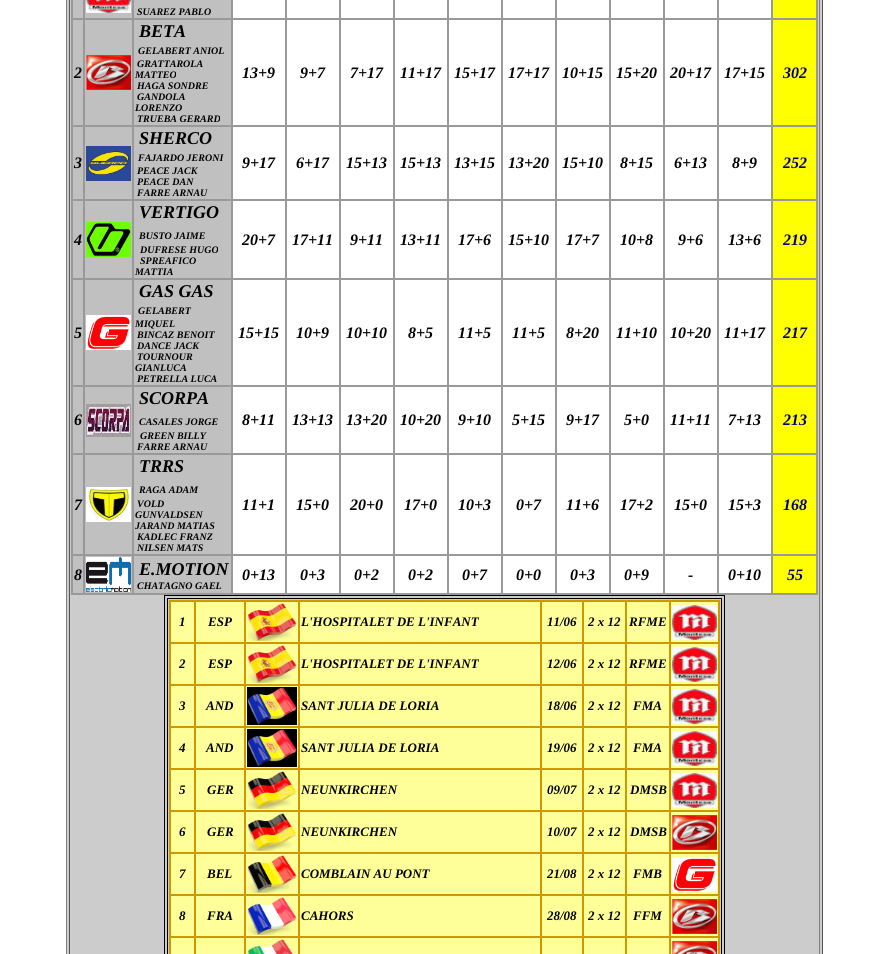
#include <cairo.h>
#include <math.h>
#include <stddef.h>


static void set_color(cairo_t *cr, unsigned color) {
    cairo_set_source_rgb(cr, (color >> 16) / 255.0, (color >> 8 & 255) / 255.0, (color & 255) / 255.0);
}

static void draw_text(cairo_t *cr, double x, double y, const char *s, const char *family, double size, int italic, int bold, unsigned color) {
    cairo_select_font_face(cr, family, italic ? CAIRO_FONT_SLANT_ITALIC : CAIRO_FONT_SLANT_NORMAL,
        bold ? CAIRO_FONT_WEIGHT_BOLD : CAIRO_FONT_WEIGHT_NORMAL);
    cairo_set_font_size(cr, size);
    set_color(cr, color);
    cairo_move_to(cr, x, y);
    cairo_show_text(cr, s);
}

static void fill_rect(cairo_t *cr, double x, double y, double w, double h, unsigned color) {
    set_color(cr, color);
    cairo_rectangle(cr, x, y, w, h);
    cairo_fill(cr);
}

static void draw_image(cairo_t *cr, const char *path, double x, double y, double w, double h) {
    cairo_surface_t *image = cairo_image_surface_create_from_png(path);
    cairo_save(cr);
    cairo_set_source_surface(cr, image, x, y);
    cairo_rectangle(cr, x, y, w, h);
    cairo_fill(cr);
    cairo_restore(cr);
    cairo_surface_destroy(image);
}

int main(void) {
    cairo_surface_t *surface = cairo_image_surface_create(CAIRO_FORMAT_RGB24, 889, 954);
    cairo_t *cr = cairo_create(surface);
    cairo_font_options_t *options = cairo_font_options_create();
    cairo_font_options_set_hint_metrics(options, CAIRO_HINT_METRICS_OFF);
    cairo_font_options_set_hint_style(options, CAIRO_HINT_STYLE_NONE);
    cairo_set_font_options(cr, options);
    cairo_set_miter_limit(cr, 4);
    set_color(cr, 0xFFFFFF);
    cairo_paint(cr);
    fill_rect(cr, 67, 0, 755, 954, 0xCCCCCC);
    fill_rect(cr, 822, 0, 1, 954, 0x555555);
    fill_rect(cr, 66, 0, 1, 954, 0x808080);
    fill_rect(cr, 819, 0, 1, 954, 0x808080);
    fill_rect(cr, 69, 0, 1, 954, 0x555555);
    fill_rect(cr, 71, 0, 747, 595, 0x999999);
    fill_rect(cr, 73, 0, 10, 18, 0xC0C0C0);
    fill_rect(cr, 85, 0, 47, 18, 0xC0C0C0);
    draw_image(cr, "assets/img1.png", 86, 0, 45, 13);
    fill_rect(cr, 134, 0, 97, 18, 0xC0C0C0);
    draw_text(cr, 137, 15, "SUAREZ PABLO", "Liberation Serif", 10, 1, 1, 0x000000);
    fill_rect(cr, 233, 0, 52, 18, 0xFFFFFF);
    fill_rect(cr, 287, 0, 52, 18, 0xFFFFFF);
    fill_rect(cr, 341, 0, 52, 18, 0xFFFFFF);
    fill_rect(cr, 395, 0, 52, 18, 0xFFFFFF);
    fill_rect(cr, 449, 0, 52, 18, 0xFFFFFF);
    fill_rect(cr, 503, 0, 52, 18, 0xFFFFFF);
    fill_rect(cr, 557, 0, 52, 18, 0xFFFFFF);
    fill_rect(cr, 611, 0, 52, 18, 0xFFFFFF);
    fill_rect(cr, 665, 0, 52, 18, 0xFFFFFF);
    fill_rect(cr, 719, 0, 52, 18, 0xFFFFFF);
    fill_rect(cr, 773, 0, 43, 18, 0xFFFF00);
    fill_rect(cr, 73, 20, 10, 105, 0xC0C0C0);
    draw_text(cr, 74, 78, "2", "Liberation Serif", 16, 1, 1, 0x000000);
    fill_rect(cr, 85, 20, 47, 105, 0xC0C0C0);
    draw_image(cr, "assets/img2.png", 86, 55, 45, 35);
    fill_rect(cr, 134, 20, 97, 105, 0xC0C0C0);
    draw_text(cr, 139, 37, "BETA", "Liberation Serif", 18, 1, 1, 0x000000);
    draw_text(cr, 138, 54, "GELABERT ANIOL", "Liberation Serif", 10, 1, 1, 0x000000);
    draw_text(cr, 137, 67, "GRATTAROLA", "Liberation Serif", 10, 1, 1, 0x000000);
    draw_text(cr, 135, 78, "MATTEO", "Liberation Serif", 10, 1, 1, 0x000000);
    draw_text(cr, 137, 89, "HAGA SONDRE", "Liberation Serif", 10, 1, 1, 0x000000);
    draw_text(cr, 137, 100, "GANDOLA", "Liberation Serif", 10, 1, 1, 0x000000);
    draw_text(cr, 135, 111, "LORENZO", "Liberation Serif", 10, 1, 1, 0x000000);
    draw_text(cr, 137, 122, "TRUEBA GERARD", "Liberation Serif", 10, 1, 1, 0x000000);
    fill_rect(cr, 233, 20, 52, 105, 0xFFFFFF);
    draw_text(cr, 242, 78, "13+9", "Liberation Serif", 16, 1, 1, 0x000000);
    fill_rect(cr, 287, 20, 52, 105, 0xFFFFFF);
    draw_text(cr, 300, 78, "9+7", "Liberation Serif", 16, 1, 1, 0x000000);
    fill_rect(cr, 341, 20, 52, 105, 0xFFFFFF);
    draw_text(cr, 350, 78, "7+17", "Liberation Serif", 16, 1, 1, 0x000000);
    fill_rect(cr, 395, 20, 52, 105, 0xFFFFFF);
    draw_text(cr, 400, 78, "11+17", "Liberation Serif", 16, 1, 1, 0x000000);
    fill_rect(cr, 449, 20, 52, 105, 0xFFFFFF);
    draw_text(cr, 454, 78, "15+17", "Liberation Serif", 16, 1, 1, 0x000000);
    fill_rect(cr, 503, 20, 52, 105, 0xFFFFFF);
    draw_text(cr, 508, 78, "17+17", "Liberation Serif", 16, 1, 1, 0x000000);
    fill_rect(cr, 557, 20, 52, 105, 0xFFFFFF);
    draw_text(cr, 562, 78, "10+15", "Liberation Serif", 16, 1, 1, 0x000000);
    fill_rect(cr, 611, 20, 52, 105, 0xFFFFFF);
    draw_text(cr, 616, 78, "15+20", "Liberation Serif", 16, 1, 1, 0x000000);
    fill_rect(cr, 665, 20, 52, 105, 0xFFFFFF);
    draw_text(cr, 670, 78, "20+17", "Liberation Serif", 16, 1, 1, 0x000000);
    fill_rect(cr, 719, 20, 52, 105, 0xFFFFFF);
    draw_text(cr, 724, 78, "17+15", "Liberation Serif", 16, 1, 1, 0x000000);
    fill_rect(cr, 773, 20, 43, 105, 0xFFFF00);
    draw_text(cr, 783, 78, "302", "Liberation Serif", 16, 1, 1, 0x000080);
    fill_rect(cr, 73, 127, 10, 72, 0xC0C0C0);
    draw_text(cr, 74, 168, "3", "Liberation Serif", 16, 1, 1, 0x000000);
    fill_rect(cr, 85, 127, 47, 72, 0xC0C0C0);
    draw_image(cr, "assets/img3.png", 86, 146, 45, 35);
    fill_rect(cr, 134, 127, 97, 72, 0xC0C0C0);
    draw_text(cr, 139, 144, "SHERCO", "Liberation Serif", 18, 1, 1, 0x000000);
    draw_text(cr, 138, 161, "FAJARDO JERONI", "Liberation Serif", 10, 1, 1, 0x000000);
    draw_text(cr, 137, 174, "PEACE JACK", "Liberation Serif", 10, 1, 1, 0x000000);
    draw_text(cr, 137, 185, "PEACE DAN", "Liberation Serif", 10, 1, 1, 0x000000);
    draw_text(cr, 137, 196, "FARRE ARNAU", "Liberation Serif", 10, 1, 1, 0x000000);
    fill_rect(cr, 233, 127, 52, 72, 0xFFFFFF);
    draw_text(cr, 242, 168, "9+17", "Liberation Serif", 16, 1, 1, 0x000000);
    fill_rect(cr, 287, 127, 52, 72, 0xFFFFFF);
    draw_text(cr, 296, 168, "6+17", "Liberation Serif", 16, 1, 1, 0x000000);
    fill_rect(cr, 341, 127, 52, 72, 0xFFFFFF);
    draw_text(cr, 346, 168, "15+13", "Liberation Serif", 16, 1, 1, 0x000000);
    fill_rect(cr, 395, 127, 52, 72, 0xFFFFFF);
    draw_text(cr, 400, 168, "15+13", "Liberation Serif", 16, 1, 1, 0x000000);
    fill_rect(cr, 449, 127, 52, 72, 0xFFFFFF);
    draw_text(cr, 454, 168, "13+15", "Liberation Serif", 16, 1, 1, 0x000000);
    fill_rect(cr, 503, 127, 52, 72, 0xFFFFFF);
    draw_text(cr, 508, 168, "13+20", "Liberation Serif", 16, 1, 1, 0x000000);
    fill_rect(cr, 557, 127, 52, 72, 0xFFFFFF);
    draw_text(cr, 562, 168, "15+10", "Liberation Serif", 16, 1, 1, 0x000000);
    fill_rect(cr, 611, 127, 52, 72, 0xFFFFFF);
    draw_text(cr, 620, 168, "8+15", "Liberation Serif", 16, 1, 1, 0x000000);
    fill_rect(cr, 665, 127, 52, 72, 0xFFFFFF);
    draw_text(cr, 674, 168, "6+13", "Liberation Serif", 16, 1, 1, 0x000000);
    fill_rect(cr, 719, 127, 52, 72, 0xFFFFFF);
    draw_text(cr, 732, 168, "8+9", "Liberation Serif", 16, 1, 1, 0x000000);
    fill_rect(cr, 773, 127, 43, 72, 0xFFFF00);
    draw_text(cr, 783, 168, "252", "Liberation Serif", 16, 1, 1, 0x000080);
    fill_rect(cr, 73, 201, 10, 77, 0xC0C0C0);
    draw_text(cr, 74, 245, "4", "Liberation Serif", 16, 1, 1, 0x000000);
    fill_rect(cr, 85, 201, 47, 77, 0xC0C0C0);
    draw_image(cr, "assets/img4.png", 86, 222, 45, 35);
    fill_rect(cr, 134, 201, 97, 77, 0xC0C0C0);
    draw_text(cr, 139, 218, "VERTIGO", "Liberation Serif", 18, 1, 1, 0x000000);
    draw_text(cr, 139, 239, "BUSTO JAIME", "Liberation Serif", 10, 1, 1, 0x000000);
    draw_text(cr, 140, 253, "DUFRESE HUGO", "Liberation Serif", 10, 1, 1, 0x000000);
    draw_text(cr, 140, 264, "SPREAFICO", "Liberation Serif", 10, 1, 1, 0x000000);
    draw_text(cr, 135, 275, "MATTIA", "Liberation Serif", 10, 1, 1, 0x000000);
    fill_rect(cr, 233, 201, 52, 77, 0xFFFFFF);
    draw_text(cr, 242, 245, "20+7", "Liberation Serif", 16, 1, 1, 0x000000);
    fill_rect(cr, 287, 201, 52, 77, 0xFFFFFF);
    draw_text(cr, 292, 245, "17+11", "Liberation Serif", 16, 1, 1, 0x000000);
    fill_rect(cr, 341, 201, 52, 77, 0xFFFFFF);
    draw_text(cr, 350, 245, "9+11", "Liberation Serif", 16, 1, 1, 0x000000);
    fill_rect(cr, 395, 201, 52, 77, 0xFFFFFF);
    draw_text(cr, 400, 245, "13+11", "Liberation Serif", 16, 1, 1, 0x000000);
    fill_rect(cr, 449, 201, 52, 77, 0xFFFFFF);
    draw_text(cr, 458, 245, "17+6", "Liberation Serif", 16, 1, 1, 0x000000);
    fill_rect(cr, 503, 201, 52, 77, 0xFFFFFF);
    draw_text(cr, 508, 245, "15+10", "Liberation Serif", 16, 1, 1, 0x000000);
    fill_rect(cr, 557, 201, 52, 77, 0xFFFFFF);
    draw_text(cr, 566, 245, "17+7", "Liberation Serif", 16, 1, 1, 0x000000);
    fill_rect(cr, 611, 201, 52, 77, 0xFFFFFF);
    draw_text(cr, 620, 245, "10+8", "Liberation Serif", 16, 1, 1, 0x000000);
    fill_rect(cr, 665, 201, 52, 77, 0xFFFFFF);
    draw_text(cr, 678, 245, "9+6", "Liberation Serif", 16, 1, 1, 0x000000);
    fill_rect(cr, 719, 201, 52, 77, 0xFFFFFF);
    draw_text(cr, 728, 245, "13+6", "Liberation Serif", 16, 1, 1, 0x000000);
    fill_rect(cr, 773, 201, 43, 77, 0xFFFF00);
    draw_text(cr, 783, 245, "219", "Liberation Serif", 16, 1, 1, 0x000080);
    fill_rect(cr, 73, 280, 10, 105, 0xC0C0C0);
    draw_text(cr, 74, 338, "5", "Liberation Serif", 16, 1, 1, 0x000000);
    fill_rect(cr, 85, 280, 47, 105, 0xC0C0C0);
    draw_image(cr, "assets/img5.png", 86, 315, 45, 35);
    fill_rect(cr, 134, 280, 97, 105, 0xC0C0C0);
    draw_text(cr, 139, 297, "GAS GAS", "Liberation Serif", 18, 1, 1, 0x000000);
    draw_text(cr, 138, 314, "GELABERT", "Liberation Serif", 10, 1, 1, 0x000000);
    draw_text(cr, 135, 327, "MIQUEL", "Liberation Serif", 10, 1, 1, 0x000000);
    draw_text(cr, 137, 338, "BINCAZ BENOIT", "Liberation Serif", 10, 1, 1, 0x000000);
    draw_text(cr, 137, 349, "DANCE JACK", "Liberation Serif", 10, 1, 1, 0x000000);
    draw_text(cr, 137, 360, "TOURNOUR", "Liberation Serif", 10, 1, 1, 0x000000);
    draw_text(cr, 135, 371, "GIANLUCA", "Liberation Serif", 10, 1, 1, 0x000000);
    draw_text(cr, 137, 382, "PETRELLA LUCA", "Liberation Serif", 10, 1, 1, 0x000000);
    fill_rect(cr, 233, 280, 52, 105, 0xFFFFFF);
    draw_text(cr, 238, 338, "15+15", "Liberation Serif", 16, 1, 1, 0x000000);
    fill_rect(cr, 287, 280, 52, 105, 0xFFFFFF);
    draw_text(cr, 296, 338, "10+9", "Liberation Serif", 16, 1, 1, 0x000000);
    fill_rect(cr, 341, 280, 52, 105, 0xFFFFFF);
    draw_text(cr, 346, 338, "10+10", "Liberation Serif", 16, 1, 1, 0x000000);
    fill_rect(cr, 395, 280, 52, 105, 0xFFFFFF);
    draw_text(cr, 408, 338, "8+5", "Liberation Serif", 16, 1, 1, 0x000000);
    fill_rect(cr, 449, 280, 52, 105, 0xFFFFFF);
    draw_text(cr, 458, 338, "11+5", "Liberation Serif", 16, 1, 1, 0x000000);
    fill_rect(cr, 503, 280, 52, 105, 0xFFFFFF);
    draw_text(cr, 512, 338, "11+5", "Liberation Serif", 16, 1, 1, 0x000000);
    fill_rect(cr, 557, 280, 52, 105, 0xFFFFFF);
    draw_text(cr, 566, 338, "8+20", "Liberation Serif", 16, 1, 1, 0x000000);
    fill_rect(cr, 611, 280, 52, 105, 0xFFFFFF);
    draw_text(cr, 616, 338, "11+10", "Liberation Serif", 16, 1, 1, 0x000000);
    fill_rect(cr, 665, 280, 52, 105, 0xFFFFFF);
    draw_text(cr, 670, 338, "10+20", "Liberation Serif", 16, 1, 1, 0x000000);
    fill_rect(cr, 719, 280, 52, 105, 0xFFFFFF);
    draw_text(cr, 724, 338, "11+17", "Liberation Serif", 16, 1, 1, 0x000000);
    fill_rect(cr, 773, 280, 43, 105, 0xFFFF00);
    draw_text(cr, 783, 338, "217", "Liberation Serif", 16, 1, 1, 0x000080);
    fill_rect(cr, 73, 387, 10, 66, 0xC0C0C0);
    draw_text(cr, 74, 425, "6", "Liberation Serif", 16, 1, 1, 0x000000);
    fill_rect(cr, 85, 387, 47, 66, 0xC0C0C0);
    draw_image(cr, "assets/img6.png", 86, 404, 45, 33);
    fill_rect(cr, 134, 387, 97, 66, 0xC0C0C0);
    draw_text(cr, 139, 404, "SCORPA", "Liberation Serif", 18, 1, 1, 0x000000);
    draw_text(cr, 139, 425, "CASALES JORGE", "Liberation Serif", 10, 1, 1, 0x000000);
    draw_text(cr, 140, 439, "GREEN BILLY", "Liberation Serif", 10, 1, 1, 0x000000);
    draw_text(cr, 137, 450, "FARRE ARNAU", "Liberation Serif", 10, 1, 1, 0x000000);
    fill_rect(cr, 233, 387, 52, 66, 0xFFFFFF);
    draw_text(cr, 242, 425, "8+11", "Liberation Serif", 16, 1, 1, 0x000000);
    fill_rect(cr, 287, 387, 52, 66, 0xFFFFFF);
    draw_text(cr, 292, 425, "13+13", "Liberation Serif", 16, 1, 1, 0x000000);
    fill_rect(cr, 341, 387, 52, 66, 0xFFFFFF);
    draw_text(cr, 346, 425, "13+20", "Liberation Serif", 16, 1, 1, 0x000000);
    fill_rect(cr, 395, 387, 52, 66, 0xFFFFFF);
    draw_text(cr, 400, 425, "10+20", "Liberation Serif", 16, 1, 1, 0x000000);
    fill_rect(cr, 449, 387, 52, 66, 0xFFFFFF);
    draw_text(cr, 458, 425, "9+10", "Liberation Serif", 16, 1, 1, 0x000000);
    fill_rect(cr, 503, 387, 52, 66, 0xFFFFFF);
    draw_text(cr, 512, 425, "5+15", "Liberation Serif", 16, 1, 1, 0x000000);
    fill_rect(cr, 557, 387, 52, 66, 0xFFFFFF);
    draw_text(cr, 566, 425, "9+17", "Liberation Serif", 16, 1, 1, 0x000000);
    fill_rect(cr, 611, 387, 52, 66, 0xFFFFFF);
    draw_text(cr, 624, 425, "5+0", "Liberation Serif", 16, 1, 1, 0x000000);
    fill_rect(cr, 665, 387, 52, 66, 0xFFFFFF);
    draw_text(cr, 670, 425, "11+11", "Liberation Serif", 16, 1, 1, 0x000000);
    fill_rect(cr, 719, 387, 52, 66, 0xFFFFFF);
    draw_text(cr, 728, 425, "7+13", "Liberation Serif", 16, 1, 1, 0x000000);
    fill_rect(cr, 773, 387, 43, 66, 0xFFFF00);
    draw_text(cr, 783, 425, "213", "Liberation Serif", 16, 1, 1, 0x000080);
    fill_rect(cr, 73, 455, 10, 99, 0xC0C0C0);
    draw_text(cr, 74, 510, "7", "Liberation Serif", 16, 1, 1, 0x000000);
    fill_rect(cr, 85, 455, 47, 99, 0xC0C0C0);
    draw_image(cr, "assets/img7.png", 86, 487, 45, 35);
    fill_rect(cr, 134, 455, 97, 99, 0xC0C0C0);
    draw_text(cr, 139, 472, "TRRS", "Liberation Serif", 18, 1, 1, 0x000000);
    draw_text(cr, 139, 493, "RAGA ADAM", "Liberation Serif", 10, 1, 1, 0x000000);
    draw_text(cr, 137, 507, "VOLD", "Liberation Serif", 10, 1, 1, 0x000000);
    draw_text(cr, 135, 518, "GUNVALDSEN", "Liberation Serif", 10, 1, 1, 0x000000);
    draw_text(cr, 135, 529, "JARAND MATIAS", "Liberation Serif", 10, 1, 1, 0x000000);
    draw_text(cr, 137, 540, "KADLEC FRANZ", "Liberation Serif", 10, 1, 1, 0x000000);
    draw_text(cr, 137, 551, "NILSEN MATS", "Liberation Serif", 10, 1, 1, 0x000000);
    fill_rect(cr, 233, 455, 52, 99, 0xFFFFFF);
    draw_text(cr, 242, 510, "11+1", "Liberation Serif", 16, 1, 1, 0x000000);
    fill_rect(cr, 287, 455, 52, 99, 0xFFFFFF);
    draw_text(cr, 296, 510, "15+0", "Liberation Serif", 16, 1, 1, 0x000000);
    fill_rect(cr, 341, 455, 52, 99, 0xFFFFFF);
    draw_text(cr, 350, 510, "20+0", "Liberation Serif", 16, 1, 1, 0x000000);
    fill_rect(cr, 395, 455, 52, 99, 0xFFFFFF);
    draw_text(cr, 404, 510, "17+0", "Liberation Serif", 16, 1, 1, 0x000000);
    fill_rect(cr, 449, 455, 52, 99, 0xFFFFFF);
    draw_text(cr, 458, 510, "10+3", "Liberation Serif", 16, 1, 1, 0x000000);
    fill_rect(cr, 503, 455, 52, 99, 0xFFFFFF);
    draw_text(cr, 516, 510, "0+7", "Liberation Serif", 16, 1, 1, 0x000000);
    fill_rect(cr, 557, 455, 52, 99, 0xFFFFFF);
    draw_text(cr, 566, 510, "11+6", "Liberation Serif", 16, 1, 1, 0x000000);
    fill_rect(cr, 611, 455, 52, 99, 0xFFFFFF);
    draw_text(cr, 620, 510, "17+2", "Liberation Serif", 16, 1, 1, 0x000000);
    fill_rect(cr, 665, 455, 52, 99, 0xFFFFFF);
    draw_text(cr, 674, 510, "15+0", "Liberation Serif", 16, 1, 1, 0x000000);
    fill_rect(cr, 719, 455, 52, 99, 0xFFFFFF);
    draw_text(cr, 728, 510, "15+3", "Liberation Serif", 16, 1, 1, 0x000000);
    fill_rect(cr, 773, 455, 43, 99, 0xFFFF00);
    draw_text(cr, 783, 510, "168", "Liberation Serif", 16, 1, 1, 0x000080);
    fill_rect(cr, 73, 556, 10, 37, 0xC0C0C0);
    draw_text(cr, 74, 580, "8", "Liberation Serif", 16, 1, 1, 0x000000);
    fill_rect(cr, 85, 556, 47, 37, 0xC0C0C0);
    draw_image(cr, "assets/img8.png", 86, 557, 45, 35);
    fill_rect(cr, 134, 556, 97, 37, 0xC0C0C0);
    draw_text(cr, 139, 575, "E.MOTION", "Liberation Serif", 18, 1, 1, 0x000000);
    draw_text(cr, 137, 589, "CHATAGNO GAEL", "Liberation Serif", 10, 1, 1, 0x000000);
    fill_rect(cr, 233, 556, 52, 37, 0xFFFFFF);
    draw_text(cr, 242, 580, "0+13", "Liberation Serif", 16, 1, 1, 0x000000);
    fill_rect(cr, 287, 556, 52, 37, 0xFFFFFF);
    draw_text(cr, 300, 580, "0+3", "Liberation Serif", 16, 1, 1, 0x000000);
    fill_rect(cr, 341, 556, 52, 37, 0xFFFFFF);
    draw_text(cr, 354, 580, "0+2", "Liberation Serif", 16, 1, 1, 0x000000);
    fill_rect(cr, 395, 556, 52, 37, 0xFFFFFF);
    draw_text(cr, 408, 580, "0+2", "Liberation Serif", 16, 1, 1, 0x000000);
    fill_rect(cr, 449, 556, 52, 37, 0xFFFFFF);
    draw_text(cr, 462, 580, "0+7", "Liberation Serif", 16, 1, 1, 0x000000);
    fill_rect(cr, 503, 556, 52, 37, 0xFFFFFF);
    draw_text(cr, 516, 580, "0+0", "Liberation Serif", 16, 1, 1, 0x000000);
    fill_rect(cr, 557, 556, 52, 37, 0xFFFFFF);
    draw_text(cr, 570, 580, "0+3", "Liberation Serif", 16, 1, 1, 0x000000);
    fill_rect(cr, 611, 556, 52, 37, 0xFFFFFF);
    draw_text(cr, 624, 580, "0+9", "Liberation Serif", 16, 1, 1, 0x000000);
    fill_rect(cr, 665, 556, 52, 37, 0xFFFFFF);
    draw_text(cr, 688, 580, "-", "Liberation Serif", 16, 1, 1, 0x000000);
    fill_rect(cr, 719, 556, 52, 37, 0xFFFFFF);
    draw_text(cr, 728, 580, "0+10", "Liberation Serif", 16, 1, 1, 0x000000);
    fill_rect(cr, 773, 556, 43, 37, 0xFFFF00);
    draw_text(cr, 787, 580, "55", "Liberation Serif", 16, 1, 1, 0x000080);
    cairo_rectangle(cr, 164.5, 595.5, 560, 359);
    set_color(cr, 0x000000);
    cairo_set_line_width(cr, 1);
    cairo_stroke(cr);
    cairo_rectangle(cr, 167.5, 598.5, 554, 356);
    cairo_stroke(cr);
    fill_rect(cr, 169, 600, 551, 354, 0xCC9900);
    fill_rect(cr, 171, 602, 23, 40, 0xFFFF99);
    draw_text(cr, 179, 626, "1", "Liberation Serif", 13, 1, 1, 0x000000);
    fill_rect(cr, 196, 602, 48, 40, 0xFFFF99);
    draw_text(cr, 208, 626, "ESP", "Liberation Serif", 13, 1, 1, 0x000000);
    fill_rect(cr, 246, 602, 52, 40, 0xFFFF99);
    draw_image(cr, "assets/img9.png", 247, 603, 50, 38);
    fill_rect(cr, 300, 602, 240, 40, 0xFFFF99);
    draw_text(cr, 301, 626, "L'HOSPITALET DE L'INFANT", "Liberation Serif", 13, 1, 1, 0x000000);
    fill_rect(cr, 542, 602, 40, 40, 0xFFFF99);
    draw_text(cr, 547, 626, "11/06", "Liberation Serif", 13, 1, 1, 0x000000);
    fill_rect(cr, 584, 602, 41, 40, 0xFFFF99);
    draw_text(cr, 588, 626, "2 x 12", "Liberation Serif", 13, 1, 1, 0x000000);
    fill_rect(cr, 627, 602, 42, 40, 0xFFFF99);
    draw_text(cr, 629, 626, "RFME", "Liberation Serif", 13, 1, 1, 0x000000);
    fill_rect(cr, 671, 602, 47, 40, 0xFFFF99);
    draw_image(cr, "assets/img10.png", 672, 605, 45, 35);
    fill_rect(cr, 171, 644, 23, 40, 0xFFFF99);
    draw_text(cr, 179, 668, "2", "Liberation Serif", 13, 1, 1, 0x000000);
    fill_rect(cr, 196, 644, 48, 40, 0xFFFF99);
    draw_text(cr, 208, 668, "ESP", "Liberation Serif", 13, 1, 1, 0x000000);
    fill_rect(cr, 246, 644, 52, 40, 0xFFFF99);
    draw_image(cr, "assets/img9.png", 247, 645, 50, 38);
    fill_rect(cr, 300, 644, 240, 40, 0xFFFF99);
    draw_text(cr, 301, 668, "L'HOSPITALET DE L'INFANT", "Liberation Serif", 13, 1, 1, 0x000000);
    fill_rect(cr, 542, 644, 40, 40, 0xFFFF99);
    draw_text(cr, 547, 668, "12/06", "Liberation Serif", 13, 1, 1, 0x000000);
    fill_rect(cr, 584, 644, 41, 40, 0xFFFF99);
    draw_text(cr, 588, 668, "2 x 12", "Liberation Serif", 13, 1, 1, 0x000000);
    fill_rect(cr, 627, 644, 42, 40, 0xFFFF99);
    draw_text(cr, 629, 668, "RFME", "Liberation Serif", 13, 1, 1, 0x000000);
    fill_rect(cr, 671, 644, 47, 40, 0xFFFF99);
    draw_image(cr, "assets/img10.png", 672, 647, 45, 35);
    fill_rect(cr, 171, 686, 23, 40, 0xFFFF99);
    draw_text(cr, 179, 710, "3", "Liberation Serif", 13, 1, 1, 0x000000);
    fill_rect(cr, 196, 686, 48, 40, 0xFFFF99);
    draw_text(cr, 206, 710, "AND", "Liberation Serif", 13, 1, 1, 0x000000);
    fill_rect(cr, 246, 686, 52, 40, 0xFFFF99);
    draw_image(cr, "assets/img11.png", 247, 687, 50, 38);
    fill_rect(cr, 300, 686, 240, 40, 0xFFFF99);
    draw_text(cr, 301, 710, "SANT JULIA DE LORIA", "Liberation Serif", 13, 1, 1, 0x000000);
    fill_rect(cr, 542, 686, 40, 40, 0xFFFF99);
    draw_text(cr, 547, 710, "18/06", "Liberation Serif", 13, 1, 1, 0x000000);
    fill_rect(cr, 584, 686, 41, 40, 0xFFFF99);
    draw_text(cr, 588, 710, "2 x 12", "Liberation Serif", 13, 1, 1, 0x000000);
    fill_rect(cr, 627, 686, 42, 40, 0xFFFF99);
    draw_text(cr, 633, 710, "FMA", "Liberation Serif", 13, 1, 1, 0x000000);
    fill_rect(cr, 671, 686, 47, 40, 0xFFFF99);
    draw_image(cr, "assets/img10.png", 672, 689, 45, 35);
    fill_rect(cr, 171, 728, 23, 40, 0xFFFF99);
    draw_text(cr, 179, 752, "4", "Liberation Serif", 13, 1, 1, 0x000000);
    fill_rect(cr, 196, 728, 48, 40, 0xFFFF99);
    draw_text(cr, 206, 752, "AND", "Liberation Serif", 13, 1, 1, 0x000000);
    fill_rect(cr, 246, 728, 52, 40, 0xFFFF99);
    draw_image(cr, "assets/img11.png", 247, 729, 50, 38);
    fill_rect(cr, 300, 728, 240, 40, 0xFFFF99);
    draw_text(cr, 301, 752, "SANT JULIA DE LORIA", "Liberation Serif", 13, 1, 1, 0x000000);
    fill_rect(cr, 542, 728, 40, 40, 0xFFFF99);
    draw_text(cr, 547, 752, "19/06", "Liberation Serif", 13, 1, 1, 0x000000);
    fill_rect(cr, 584, 728, 41, 40, 0xFFFF99);
    draw_text(cr, 588, 752, "2 x 12", "Liberation Serif", 13, 1, 1, 0x000000);
    fill_rect(cr, 627, 728, 42, 40, 0xFFFF99);
    draw_text(cr, 633, 752, "FMA", "Liberation Serif", 13, 1, 1, 0x000000);
    fill_rect(cr, 671, 728, 47, 40, 0xFFFF99);
    draw_image(cr, "assets/img10.png", 672, 731, 45, 35);
    fill_rect(cr, 171, 770, 23, 40, 0xFFFF99);
    draw_text(cr, 179, 794, "5", "Liberation Serif", 13, 1, 1, 0x000000);
    fill_rect(cr, 196, 770, 48, 40, 0xFFFF99);
    draw_text(cr, 207, 794, "GER", "Liberation Serif", 13, 1, 1, 0x000000);
    fill_rect(cr, 246, 770, 52, 40, 0xFFFF99);
    draw_image(cr, "assets/img12.png", 247, 771, 50, 38);
    fill_rect(cr, 300, 770, 240, 40, 0xFFFF99);
    draw_text(cr, 301, 794, "NEUNKIRCHEN", "Liberation Serif", 13, 1, 1, 0x000000);
    fill_rect(cr, 542, 770, 40, 40, 0xFFFF99);
    draw_text(cr, 547, 794, "09/07", "Liberation Serif", 13, 1, 1, 0x000000);
    fill_rect(cr, 584, 770, 41, 40, 0xFFFF99);
    draw_text(cr, 588, 794, "2 x 12", "Liberation Serif", 13, 1, 1, 0x000000);
    fill_rect(cr, 627, 770, 42, 40, 0xFFFF99);
    draw_text(cr, 630, 794, "DMSB", "Liberation Serif", 13, 1, 1, 0x000000);
    fill_rect(cr, 671, 770, 47, 40, 0xFFFF99);
    draw_image(cr, "assets/img10.png", 672, 773, 45, 35);
    fill_rect(cr, 171, 812, 23, 40, 0xFFFF99);
    draw_text(cr, 179, 836, "6", "Liberation Serif", 13, 1, 1, 0x000000);
    fill_rect(cr, 196, 812, 48, 40, 0xFFFF99);
    draw_text(cr, 207, 836, "GER", "Liberation Serif", 13, 1, 1, 0x000000);
    fill_rect(cr, 246, 812, 52, 40, 0xFFFF99);
    draw_image(cr, "assets/img12.png", 247, 813, 50, 38);
    fill_rect(cr, 300, 812, 240, 40, 0xFFFF99);
    draw_text(cr, 301, 836, "NEUNKIRCHEN", "Liberation Serif", 13, 1, 1, 0x000000);
    fill_rect(cr, 542, 812, 40, 40, 0xFFFF99);
    draw_text(cr, 547, 836, "10/07", "Liberation Serif", 13, 1, 1, 0x000000);
    fill_rect(cr, 584, 812, 41, 40, 0xFFFF99);
    draw_text(cr, 588, 836, "2 x 12", "Liberation Serif", 13, 1, 1, 0x000000);
    fill_rect(cr, 627, 812, 42, 40, 0xFFFF99);
    draw_text(cr, 630, 836, "DMSB", "Liberation Serif", 13, 1, 1, 0x000000);
    fill_rect(cr, 671, 812, 47, 40, 0xFFFF99);
    draw_image(cr, "assets/img2.png", 672, 815, 45, 35);
    fill_rect(cr, 171, 854, 23, 40, 0xFFFF99);
    draw_text(cr, 179, 878, "7", "Liberation Serif", 13, 1, 1, 0x000000);
    fill_rect(cr, 196, 854, 48, 40, 0xFFFF99);
    draw_text(cr, 207, 878, "BEL", "Liberation Serif", 13, 1, 1, 0x000000);
    fill_rect(cr, 246, 854, 52, 40, 0xFFFF99);
    draw_image(cr, "assets/img13.png", 247, 855, 50, 38);
    fill_rect(cr, 300, 854, 240, 40, 0xFFFF99);
    draw_text(cr, 301, 878, "COMBLAIN AU PONT", "Liberation Serif", 13, 1, 1, 0x000000);
    fill_rect(cr, 542, 854, 40, 40, 0xFFFF99);
    draw_text(cr, 547, 878, "21/08", "Liberation Serif", 13, 1, 1, 0x000000);
    fill_rect(cr, 584, 854, 41, 40, 0xFFFF99);
    draw_text(cr, 588, 878, "2 x 12", "Liberation Serif", 13, 1, 1, 0x000000);
    fill_rect(cr, 627, 854, 42, 40, 0xFFFF99);
    draw_text(cr, 633, 878, "FMB", "Liberation Serif", 13, 1, 1, 0x000000);
    fill_rect(cr, 671, 854, 47, 40, 0xFFFF99);
    draw_image(cr, "assets/img5.png", 672, 857, 45, 35);
    fill_rect(cr, 171, 896, 23, 40, 0xFFFF99);
    draw_text(cr, 179, 920, "8", "Liberation Serif", 13, 1, 1, 0x000000);
    fill_rect(cr, 196, 896, 48, 40, 0xFFFF99);
    draw_text(cr, 207, 920, "FRA", "Liberation Serif", 13, 1, 1, 0x000000);
    fill_rect(cr, 246, 896, 52, 40, 0xFFFF99);
    draw_image(cr, "assets/img14.png", 247, 897, 50, 38);
    fill_rect(cr, 300, 896, 240, 40, 0xFFFF99);
    draw_text(cr, 301, 920, "CAHORS", "Liberation Serif", 13, 1, 1, 0x000000);
    fill_rect(cr, 542, 896, 40, 40, 0xFFFF99);
    draw_text(cr, 547, 920, "28/08", "Liberation Serif", 13, 1, 1, 0x000000);
    fill_rect(cr, 584, 896, 41, 40, 0xFFFF99);
    draw_text(cr, 588, 920, "2 x 12", "Liberation Serif", 13, 1, 1, 0x000000);
    fill_rect(cr, 627, 896, 42, 40, 0xFFFF99);
    draw_text(cr, 633, 920, "FFM", "Liberation Serif", 13, 1, 1, 0x000000);
    fill_rect(cr, 671, 896, 47, 40, 0xFFFF99);
    draw_image(cr, "assets/img2.png", 672, 899, 45, 35);
    fill_rect(cr, 171, 938, 23, 16, 0xFFFF99);
    fill_rect(cr, 196, 938, 48, 16, 0xFFFF99);
    fill_rect(cr, 246, 938, 52, 16, 0xFFFF99);
    draw_image(cr, "assets/img15.png", 247, 939, 46, 15);
    fill_rect(cr, 300, 938, 240, 16, 0xFFFF99);
    fill_rect(cr, 542, 938, 40, 16, 0xFFFF99);
    fill_rect(cr, 584, 938, 41, 16, 0xFFFF99);
    fill_rect(cr, 627, 938, 42, 16, 0xFFFF99);
    fill_rect(cr, 671, 938, 47, 16, 0xFFFF99);
    draw_image(cr, "assets/img16.png", 672, 941, 45, 13);
    cairo_surface_write_to_png(surface, "output.png");
    cairo_font_options_destroy(options);
    cairo_destroy(cr);
    cairo_surface_destroy(surface);
    return 0;
}
